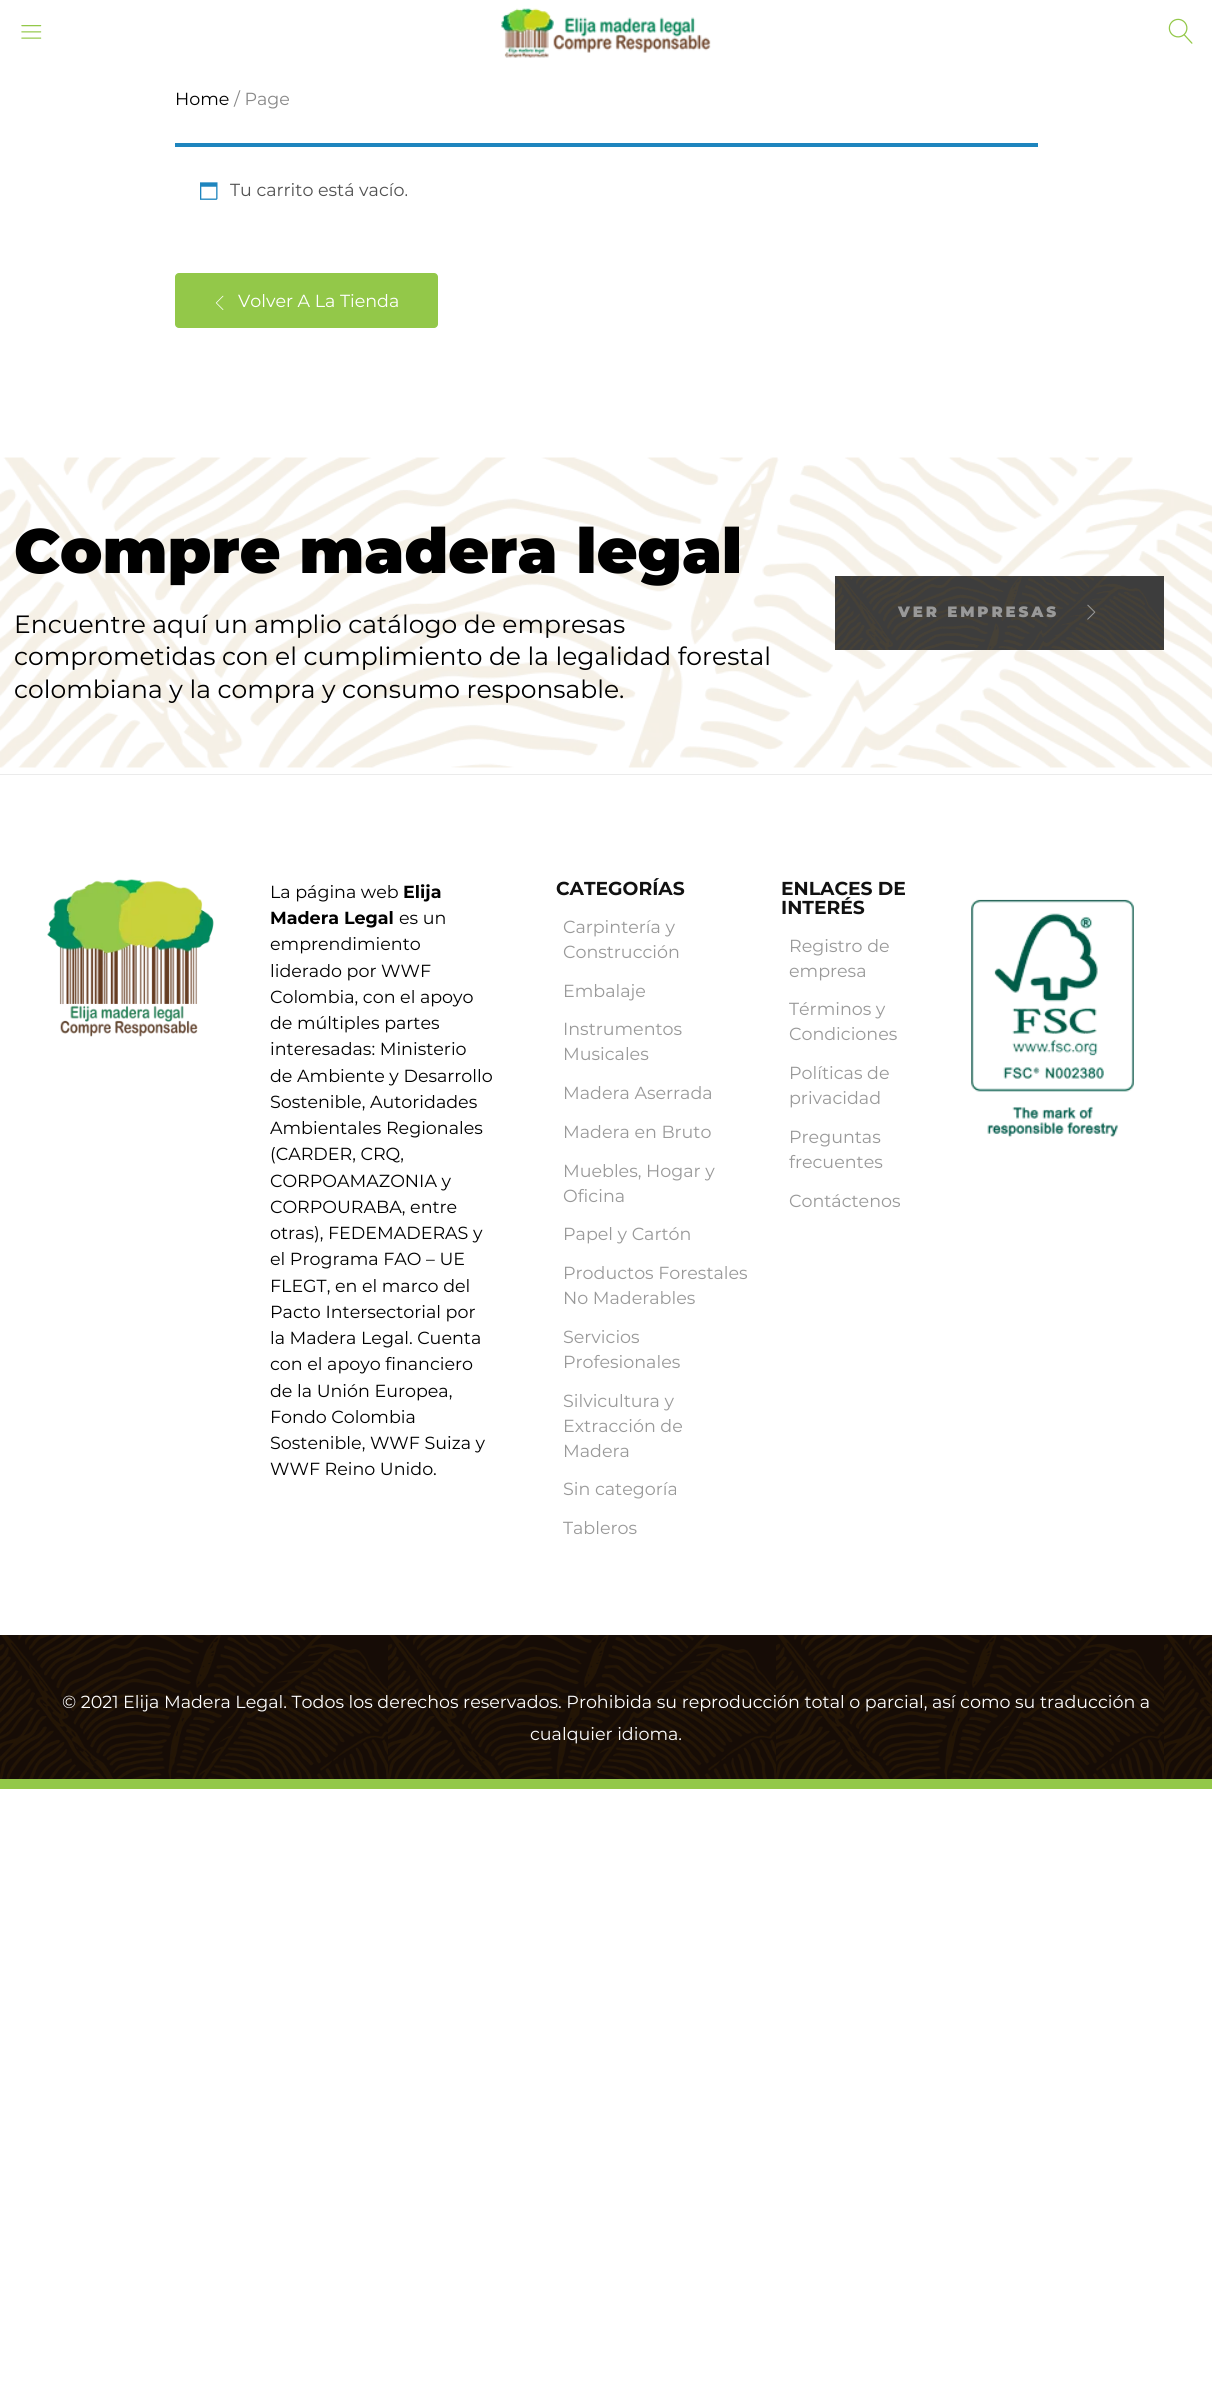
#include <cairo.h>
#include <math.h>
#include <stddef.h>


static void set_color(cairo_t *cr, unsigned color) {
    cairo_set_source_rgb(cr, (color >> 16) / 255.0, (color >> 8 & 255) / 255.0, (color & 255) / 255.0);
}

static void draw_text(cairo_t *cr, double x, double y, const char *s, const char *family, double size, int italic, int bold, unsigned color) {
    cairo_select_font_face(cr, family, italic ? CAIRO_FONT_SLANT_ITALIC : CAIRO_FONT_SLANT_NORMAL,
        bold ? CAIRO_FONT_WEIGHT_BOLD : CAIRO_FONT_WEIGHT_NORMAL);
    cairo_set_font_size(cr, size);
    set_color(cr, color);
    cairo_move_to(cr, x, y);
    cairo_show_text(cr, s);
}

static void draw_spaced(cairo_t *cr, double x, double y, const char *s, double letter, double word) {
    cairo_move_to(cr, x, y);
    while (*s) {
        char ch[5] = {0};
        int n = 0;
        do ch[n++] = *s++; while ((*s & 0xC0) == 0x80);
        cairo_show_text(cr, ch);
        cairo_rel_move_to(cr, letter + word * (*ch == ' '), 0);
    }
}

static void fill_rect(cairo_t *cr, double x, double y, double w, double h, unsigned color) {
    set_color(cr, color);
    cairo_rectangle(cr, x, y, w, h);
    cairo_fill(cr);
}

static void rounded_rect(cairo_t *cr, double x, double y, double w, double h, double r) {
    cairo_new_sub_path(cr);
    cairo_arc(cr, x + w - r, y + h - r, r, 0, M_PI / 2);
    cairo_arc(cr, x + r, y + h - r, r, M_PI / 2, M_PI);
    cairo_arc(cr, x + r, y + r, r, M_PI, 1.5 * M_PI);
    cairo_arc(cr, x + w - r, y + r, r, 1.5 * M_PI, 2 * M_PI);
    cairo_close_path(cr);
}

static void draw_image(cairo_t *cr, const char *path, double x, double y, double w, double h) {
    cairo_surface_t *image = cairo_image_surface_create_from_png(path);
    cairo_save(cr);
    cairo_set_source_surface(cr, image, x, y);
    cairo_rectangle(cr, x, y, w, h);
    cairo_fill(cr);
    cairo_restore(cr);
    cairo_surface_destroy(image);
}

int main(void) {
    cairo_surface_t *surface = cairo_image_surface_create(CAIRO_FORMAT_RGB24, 1212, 2397);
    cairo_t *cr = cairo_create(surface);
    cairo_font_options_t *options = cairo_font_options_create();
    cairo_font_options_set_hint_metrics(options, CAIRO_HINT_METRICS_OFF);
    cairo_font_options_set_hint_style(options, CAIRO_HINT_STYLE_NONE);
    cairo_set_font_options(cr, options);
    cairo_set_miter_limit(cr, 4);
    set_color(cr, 0xFFFFFF);
    cairo_paint(cr);
    draw_image(cr, "assets/img1.png", 21, 25, 21, 14);
    draw_image(cr, "assets/img2.png", 501, 8, 210, 50);
    draw_image(cr, "assets/img3.png", 1168, 18, 25, 26);
    draw_text(cr, 175, 105, "Home", "Montserrat", 17.5, 0, 0, 0x000000);
    draw_text(cr, 234, 105, "/ Page", "Montserrat", 17.5, 0, 0, 0x888888);
    fill_rect(cr, 175, 143, 863, 4, 0x1E85BE);
    draw_image(cr, "assets/img4.png", 200, 182, 18, 18);
    draw_text(cr, 230, 196, "Tu carrito está vacío.", "Montserrat", 17.5, 0, 0, 0x515151);
    set_color(cr, 0x93C849);
    rounded_rect(cr, 175, 273, 263, 55, 4);
    cairo_fill(cr);
    draw_image(cr, "assets/img5.png", 215, 295, 9, 15);
    draw_text(cr, 238, 307, "Volver A La Tienda", "Montserrat", 17.5, 0, 0, 0xFFFFFF);
    draw_image(cr, "assets/img6.png", 0, 457, 1212, 311);
    draw_text(cr, 14, 573, "Compre madera legal", "Montserrat Black", 62.5, 0, 0, 0x000000);
    draw_text(cr, 14, 633, "Encuentre aquí un amplio catálogo de empresas", "Montserrat", 25, 0, 0, 0x000000);
    draw_text(cr, 14, 665, "comprometidas con el cumplimiento de la legalidad forestal", "Montserrat", 25, 0, 0, 0x000000);
    draw_text(cr, 14, 698, "colombiana y la compra y consumo responsable.", "Montserrat", 25, 0, 0, 0x000000);
    fill_rect(cr, 835, 576, 329, 74, 0x3D3D3D);
    draw_image(cr, "assets/img7.png", 835, 576, 329, 74);
    cairo_select_font_face(cr, "Montserrat Black", CAIRO_FONT_SLANT_NORMAL, CAIRO_FONT_WEIGHT_NORMAL);
    cairo_set_font_size(cr, 15);
    set_color(cr, 0x999999);
    draw_spaced(cr, 898, 617, "VER EMPRESAS", 2.9, 0);
    draw_image(cr, "assets/img8.png", 1087, 604, 9, 16);
    fill_rect(cr, 0, 774, 1212, 1, 0xEBEBEB);
    draw_image(cr, "assets/img9.png", 47, 879, 167, 158);
    draw_text(cr, 270, 898, "La página web", "Montserrat", 17.5, 0, 0, 0x000000);
    draw_text(cr, 403, 898, "Elija", "Montserrat", 17.5, 0, 1, 0x000000);
    draw_text(cr, 270, 924, "Madera Legal", "Montserrat", 17.5, 0, 1, 0x000000);
    draw_text(cr, 399, 924, "es un", "Montserrat", 17.5, 0, 0, 0x000000);
    draw_text(cr, 270, 950, "emprendimiento", "Montserrat", 17.5, 0, 0, 0x000000);
    draw_text(cr, 270, 977, "liderado por WWF", "Montserrat", 17.5, 0, 0, 0x000000);
    draw_text(cr, 270, 1003, "Colombia, con el apoyo", "Montserrat", 17.5, 0, 0, 0x000000);
    draw_text(cr, 270, 1029, "de múltiples partes", "Montserrat", 17.5, 0, 0, 0x000000);
    draw_text(cr, 270, 1055, "interesadas: Ministerio", "Montserrat", 17.5, 0, 0, 0x000000);
    draw_text(cr, 270, 1082, "de Ambiente y Desarrollo", "Montserrat", 17.5, 0, 0, 0x000000);
    draw_text(cr, 270, 1108, "Sostenible, Autoridades", "Montserrat", 17.5, 0, 0, 0x000000);
    draw_text(cr, 270, 1134, "Ambientales Regionales", "Montserrat", 17.5, 0, 0, 0x000000);
    draw_text(cr, 270, 1160, "(CARDER, CRQ,", "Montserrat", 17.5, 0, 0, 0x000000);
    draw_text(cr, 270, 1187, "CORPOAMAZONIA y", "Montserrat", 17.5, 0, 0, 0x000000);
    draw_text(cr, 270, 1213, "CORPOURABA, entre", "Montserrat", 17.5, 0, 0, 0x000000);
    draw_text(cr, 270, 1239, "otras), FEDEMADERAS y", "Montserrat", 17.5, 0, 0, 0x000000);
    draw_text(cr, 270, 1265, "el Programa FAO – UE", "Montserrat", 17.5, 0, 0, 0x000000);
    draw_text(cr, 270, 1292, "FLEGT, en el marco del", "Montserrat", 17.5, 0, 0, 0x000000);
    draw_text(cr, 270, 1318, "Pacto Intersectorial por", "Montserrat", 17.5, 0, 0, 0x000000);
    draw_text(cr, 270, 1344, "la Madera Legal. Cuenta", "Montserrat", 17.5, 0, 0, 0x000000);
    draw_text(cr, 270, 1370, "con el apoyo financiero", "Montserrat", 17.5, 0, 0, 0x000000);
    draw_text(cr, 270, 1397, "de la Unión Europea,", "Montserrat", 17.5, 0, 0, 0x000000);
    draw_text(cr, 270, 1423, "Fondo Colombia", "Montserrat", 17.5, 0, 0, 0x000000);
    draw_text(cr, 270, 1449, "Sostenible, WWF Suiza y", "Montserrat", 17.5, 0, 0, 0x000000);
    draw_text(cr, 270, 1475, "WWF Reino Unido.", "Montserrat", 17.5, 0, 0, 0x000000);
    draw_text(cr, 556, 895, "CATEGORÍAS", "Montserrat", 18.75, 0, 1, 0x111111);
    draw_text(cr, 563, 933, "Carpintería y", "Montserrat", 17.5, 0, 0, 0x999999);
    draw_text(cr, 563, 958, "Construcción", "Montserrat", 17.5, 0, 0, 0x999999);
    draw_text(cr, 563, 997, "Embalaje", "Montserrat", 17.5, 0, 0, 0x999999);
    draw_text(cr, 563, 1035, "Instrumentos", "Montserrat", 17.5, 0, 0, 0x999999);
    draw_text(cr, 563, 1060, "Musicales", "Montserrat", 17.5, 0, 0, 0x999999);
    draw_text(cr, 563, 1099, "Madera Aserrada", "Montserrat", 17.5, 0, 0, 0x999999);
    draw_text(cr, 563, 1138, "Madera en Bruto", "Montserrat", 17.5, 0, 0, 0x999999);
    draw_text(cr, 563, 1177, "Muebles, Hogar y", "Montserrat", 17.5, 0, 0, 0x999999);
    draw_text(cr, 563, 1202, "Oficina", "Montserrat", 17.5, 0, 0, 0x999999);
    draw_text(cr, 563, 1240, "Papel y Cartón", "Montserrat", 17.5, 0, 0, 0x999999);
    draw_text(cr, 563, 1279, "Productos Forestales", "Montserrat", 17.5, 0, 0, 0x999999);
    draw_text(cr, 563, 1304, "No Maderables", "Montserrat", 17.5, 0, 0, 0x999999);
    draw_text(cr, 563, 1343, "Servicios", "Montserrat", 17.5, 0, 0, 0x999999);
    draw_text(cr, 563, 1368, "Profesionales", "Montserrat", 17.5, 0, 0, 0x999999);
    draw_text(cr, 563, 1407, "Silvicultura y", "Montserrat", 17.5, 0, 0, 0x999999);
    draw_text(cr, 563, 1432, "Extracción de", "Montserrat", 17.5, 0, 0, 0x999999);
    draw_text(cr, 563, 1457, "Madera", "Montserrat", 17.5, 0, 0, 0x999999);
    draw_text(cr, 563, 1495, "Sin categoría", "Montserrat", 17.5, 0, 0, 0x999999);
    draw_text(cr, 563, 1534, "Tableros", "Montserrat", 17.5, 0, 0, 0x999999);
    draw_text(cr, 781, 895, "ENLACES DE", "Montserrat", 18.75, 0, 1, 0x111111);
    draw_text(cr, 781, 914, "INTERÉS", "Montserrat", 18.75, 0, 1, 0x111111);
    draw_text(cr, 789, 952, "Registro de", "Montserrat", 17.5, 0, 0, 0x999999);
    draw_text(cr, 789, 977, "empresa", "Montserrat", 17.5, 0, 0, 0x999999);
    draw_text(cr, 789, 1015, "Términos y", "Montserrat", 17.5, 0, 0, 0x999999);
    draw_text(cr, 789, 1040, "Condiciones", "Montserrat", 17.5, 0, 0, 0x999999);
    draw_text(cr, 789, 1079, "Políticas de", "Montserrat", 17.5, 0, 0, 0x999999);
    draw_text(cr, 789, 1104, "privacidad", "Montserrat", 17.5, 0, 0, 0x999999);
    draw_text(cr, 789, 1143, "Preguntas", "Montserrat", 17.5, 0, 0, 0x999999);
    draw_text(cr, 789, 1168, "frecuentes", "Montserrat", 17.5, 0, 0, 0x999999);
    draw_text(cr, 789, 1207, "Contáctenos", "Montserrat", 17.5, 0, 0, 0x999999);
    draw_image(cr, "assets/img10.png", 971, 899, 163, 238);
    fill_rect(cr, 0, 1635, 1212, 144, 0x160C06);
    draw_image(cr, "assets/img11.png", 0, 1635, 1212, 144);
    fill_rect(cr, 0, 1779, 1212, 10, 0x93C849);
    draw_text(cr, 62, 1708, "© 2021 Elija Madera Legal. Todos los derechos reservados. Prohibida su reproducción total o parcial, así como su traducción a", "Montserrat", 17.5, 0, 0, 0xFFFFFF);
    draw_text(cr, 530, 1740, "cualquier idioma.", "Montserrat", 17.5, 0, 0, 0xFFFFFF);
    cairo_surface_write_to_png(surface, "output.png");
    cairo_font_options_destroy(options);
    cairo_destroy(cr);
    cairo_surface_destroy(surface);
    return 0;
}
